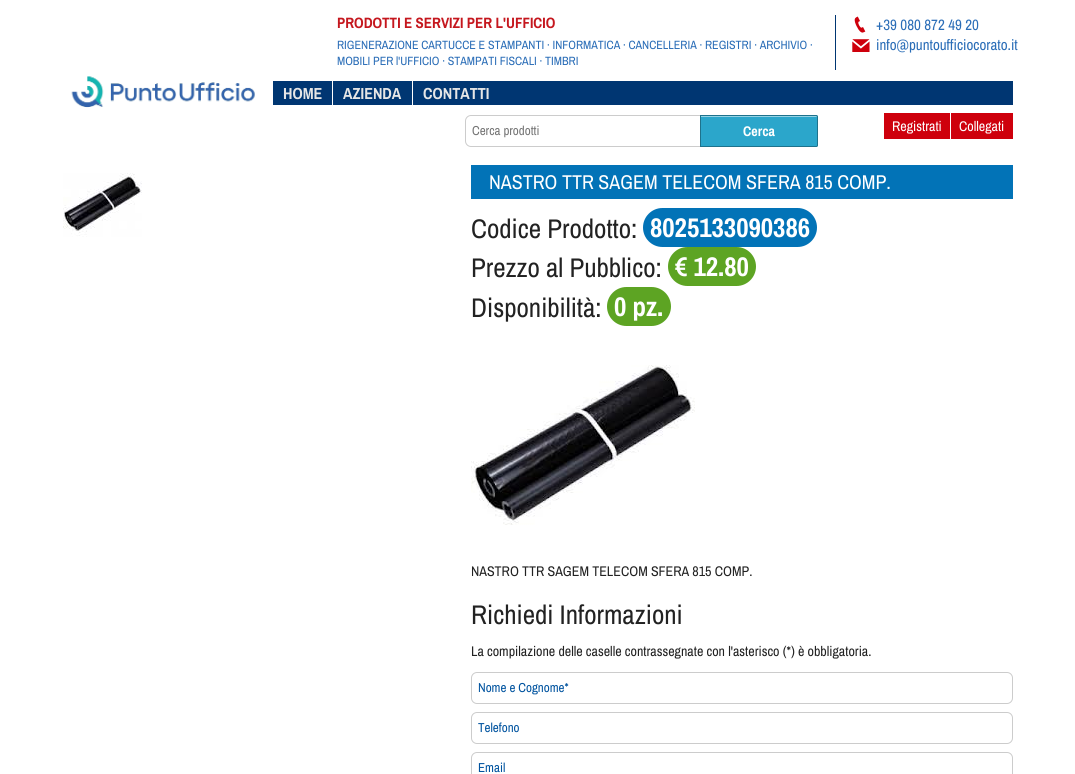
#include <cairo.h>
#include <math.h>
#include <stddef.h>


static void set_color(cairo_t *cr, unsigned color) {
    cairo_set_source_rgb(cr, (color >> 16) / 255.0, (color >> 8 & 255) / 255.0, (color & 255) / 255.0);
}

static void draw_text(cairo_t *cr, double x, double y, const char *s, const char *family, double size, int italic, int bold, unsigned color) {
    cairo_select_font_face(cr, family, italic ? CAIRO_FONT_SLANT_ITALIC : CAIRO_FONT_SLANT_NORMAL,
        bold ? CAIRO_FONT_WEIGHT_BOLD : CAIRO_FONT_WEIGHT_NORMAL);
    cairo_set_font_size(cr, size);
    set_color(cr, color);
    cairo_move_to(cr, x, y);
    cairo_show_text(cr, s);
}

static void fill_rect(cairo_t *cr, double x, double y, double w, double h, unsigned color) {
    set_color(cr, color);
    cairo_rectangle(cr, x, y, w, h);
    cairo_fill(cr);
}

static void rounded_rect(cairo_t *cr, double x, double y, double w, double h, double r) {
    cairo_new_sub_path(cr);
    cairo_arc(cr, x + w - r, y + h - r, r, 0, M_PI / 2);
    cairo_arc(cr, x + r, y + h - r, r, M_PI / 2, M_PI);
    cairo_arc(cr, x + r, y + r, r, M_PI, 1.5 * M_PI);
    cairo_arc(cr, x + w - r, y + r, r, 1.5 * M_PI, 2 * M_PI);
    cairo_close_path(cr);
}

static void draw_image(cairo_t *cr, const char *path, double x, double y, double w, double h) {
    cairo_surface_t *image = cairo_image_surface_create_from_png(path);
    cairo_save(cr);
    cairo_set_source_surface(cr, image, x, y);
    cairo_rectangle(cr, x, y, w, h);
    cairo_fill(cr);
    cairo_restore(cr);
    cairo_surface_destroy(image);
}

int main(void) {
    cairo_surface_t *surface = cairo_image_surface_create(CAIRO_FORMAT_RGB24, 1075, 774);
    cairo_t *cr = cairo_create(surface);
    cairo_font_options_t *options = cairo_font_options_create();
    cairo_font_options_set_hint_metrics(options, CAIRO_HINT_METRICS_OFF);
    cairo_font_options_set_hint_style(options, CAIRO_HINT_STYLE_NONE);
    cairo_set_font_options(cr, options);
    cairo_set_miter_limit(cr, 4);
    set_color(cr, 0xFFFFFF);
    cairo_paint(cr);
    draw_image(cr, "assets/img1.png", 71, 76, 184, 32);
    draw_text(cr, 337, 28, "PRODOTTI E SERVIZI PER L'UFFICIO", "Archivo Narrow", 15, 0, 1, 0xC5171E);
    draw_text(cr, 337, 49, "RIGENERAZIONE CARTUCCE E STAMPANTI · INFORMATICA · CANCELLERIA · REGISTRI · ARCHIVIO ·", "Archivo Narrow", 12, 0, 0, 0x2A6DB7);
    draw_text(cr, 337, 65, "MOBILI PER l'UFFICIO · STAMPATI FISCALI · TIMBRI", "Archivo Narrow", 12, 0, 0, 0x2A6DB7);
    fill_rect(cr, 835, 15, 1, 55, 0x003672);
    draw_image(cr, "assets/img2.png", 854, 16, 12, 17);
    draw_text(cr, 876, 30, "+39 080 872 49 20", "Archivo Narrow", 15, 0, 0, 0x2A6DB7);
    draw_image(cr, "assets/img3.png", 852, 39, 18, 13);
    draw_text(cr, 876, 50, "info@puntoufficiocorato.it", "Archivo Narrow", 15, 0, 0, 0x2A6DB7);
    fill_rect(cr, 273, 81, 740, 24, 0x003672);
    fill_rect(cr, 332, 81, 1, 24, 0xFFFFFF);
    draw_text(cr, 283, 99, "HOME", "Archivo Narrow", 16, 0, 1, 0xE6E6E6);
    fill_rect(cr, 412, 81, 1, 24, 0xFFFFFF);
    draw_text(cr, 343, 99, "AZIENDA", "Archivo Narrow", 16, 0, 1, 0xE6E6E6);
    draw_text(cr, 423, 99, "CONTATTI", "Archivo Narrow", 16, 0, 1, 0xE6E6E6);
    cairo_new_path(cr);
    cairo_move_to(cr, 471, 115.5);
    cairo_line_to(cr, 701.5, 115.5);
    cairo_line_to(cr, 701.5, 146.5);
    cairo_line_to(cr, 471, 146.5);
    cairo_curve_to(cr, 468, 146.5, 465.5, 144, 465.5, 141);
    cairo_line_to(cr, 465.5, 121);
    cairo_curve_to(cr, 465.5, 118, 468, 115.5, 471, 115.5);
    cairo_close_path(cr);
    set_color(cr, 0xCCCCCC);
    cairo_set_line_width(cr, 1);
    cairo_stroke(cr);
    draw_text(cr, 472, 135, "Cerca prodotti", "Archivo Narrow", 13, 0, 0, 0x757575);
    set_color(cr, 0x2BA6CB);
    cairo_new_path(cr);
    cairo_move_to(cr, 700, 115);
    cairo_line_to(cr, 816, 115);
    cairo_curve_to(cr, 817, 115, 818, 116, 818, 117);
    cairo_line_to(cr, 818, 145);
    cairo_curve_to(cr, 818, 146, 817, 147, 816, 147);
    cairo_line_to(cr, 700, 147);
    cairo_close_path(cr);
    cairo_fill(cr);
    set_color(cr, 0x95D3E5);
    cairo_new_path(cr);
    cairo_move_to(cr, 701, 117);
    cairo_line_to(cr, 817, 117);
    cairo_line_to(cr, 817, 118);
    cairo_curve_to(cr, 817, 117, 817, 116, 816, 116);
    cairo_line_to(cr, 701, 116);
    cairo_close_path(cr);
    cairo_fill(cr);
    cairo_new_path(cr);
    cairo_move_to(cr, 700.5, 115.5);
    cairo_line_to(cr, 816, 115.5);
    cairo_curve_to(cr, 817, 115.5, 817.5, 116, 817.5, 117);
    cairo_line_to(cr, 817.5, 145);
    cairo_curve_to(cr, 817.5, 146, 817, 146.5, 816, 146.5);
    cairo_line_to(cr, 700.5, 146.5);
    cairo_close_path(cr);
    set_color(cr, 0x1E728C);
    cairo_stroke(cr);
    draw_text(cr, 743, 136, "Cerca", "Archivo Narrow", 14, 0, 1, 0xFFFFFF);
    fill_rect(cr, 884, 113, 66, 26, 0xCE000C);
    draw_text(cr, 892, 131, "Registrati", "Archivo Narrow", 14, 0, 0, 0xFFFFFF);
    fill_rect(cr, 951, 113, 62, 26, 0xCE000C);
    draw_text(cr, 959, 131, "Collegati", "Archivo Narrow", 14, 0, 0, 0xFFFFFF);
    draw_image(cr, "assets/img4.png", 63, 173, 79, 64);
    fill_rect(cr, 471, 165, 542, 34, 0x0273B7);
    draw_text(cr, 489, 189, "NASTRO TTR SAGEM TELECOM SFERA 815 COMP.", "Archivo Narrow", 20, 0, 0, 0xFFFFFF);
    draw_text(cr, 471, 238, "Codice Prodotto:", "Archivo Narrow", 27, 0, 0, 0x222222);
    set_color(cr, 0x0273B7);
    rounded_rect(cr, 643, 208, 174, 39, 19.5);
    cairo_fill(cr);
    draw_text(cr, 650, 237, "8025133090386", "Archivo Narrow", 27, 0, 1, 0xFFFFFF);
    draw_text(cr, 471, 277, "Prezzo al Pubblico:", "Archivo Narrow", 27, 0, 0, 0x222222);
    set_color(cr, 0x5DA423);
    rounded_rect(cr, 668, 247, 88, 39, 19.5);
    cairo_fill(cr);
    draw_text(cr, 675, 276, "€ 12.80", "Archivo Narrow", 27, 0, 1, 0xFFFFFF);
    draw_text(cr, 471, 317, "Disponibilità:", "Archivo Narrow", 27, 0, 0, 0x222222);
    set_color(cr, 0x5DA423);
    rounded_rect(cr, 607, 287, 64, 39, 19.5);
    cairo_fill(cr);
    draw_text(cr, 614, 316, "0 pz.", "Archivo Narrow", 27, 0, 1, 0xFFFFFF);
    draw_image(cr, "assets/img5.png", 471, 365, 224, 160);
    draw_text(cr, 471, 576, "NASTRO TTR SAGEM TELECOM SFERA 815 COMP.", "Archivo Narrow", 14, 0, 0, 0x222222);
    draw_text(cr, 471, 624, "Richiedi Informazioni", "Archivo Narrow", 27, 0, 0, 0x222222);
    draw_text(cr, 471, 656, "La compilazione delle caselle contrassegnate con l'asterisco (*) è obbligatoria.", "Archivo Narrow", 14, 0, 0, 0x222222);
    rounded_rect(cr, 471.5, 672.5, 541, 31, 5.5);
    set_color(cr, 0xCCCCCC);
    cairo_stroke(cr);
    draw_text(cr, 478, 692, "Nome e Cognome*", "Archivo Narrow", 13, 0, 0, 0x00539F);
    rounded_rect(cr, 471.5, 712.5, 541, 31, 5.5);
    set_color(cr, 0xCCCCCC);
    cairo_stroke(cr);
    draw_text(cr, 478, 732, "Telefono", "Archivo Narrow", 13, 0, 0, 0x00539F);
    rounded_rect(cr, 471.5, 752.5, 541, 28, 5.5);
    set_color(cr, 0xCCCCCC);
    cairo_stroke(cr);
    draw_text(cr, 478, 772, "Email", "Archivo Narrow", 13, 0, 0, 0x00539F);
    cairo_surface_write_to_png(surface, "output.png");
    cairo_font_options_destroy(options);
    cairo_destroy(cr);
    cairo_surface_destroy(surface);
    return 0;
}
